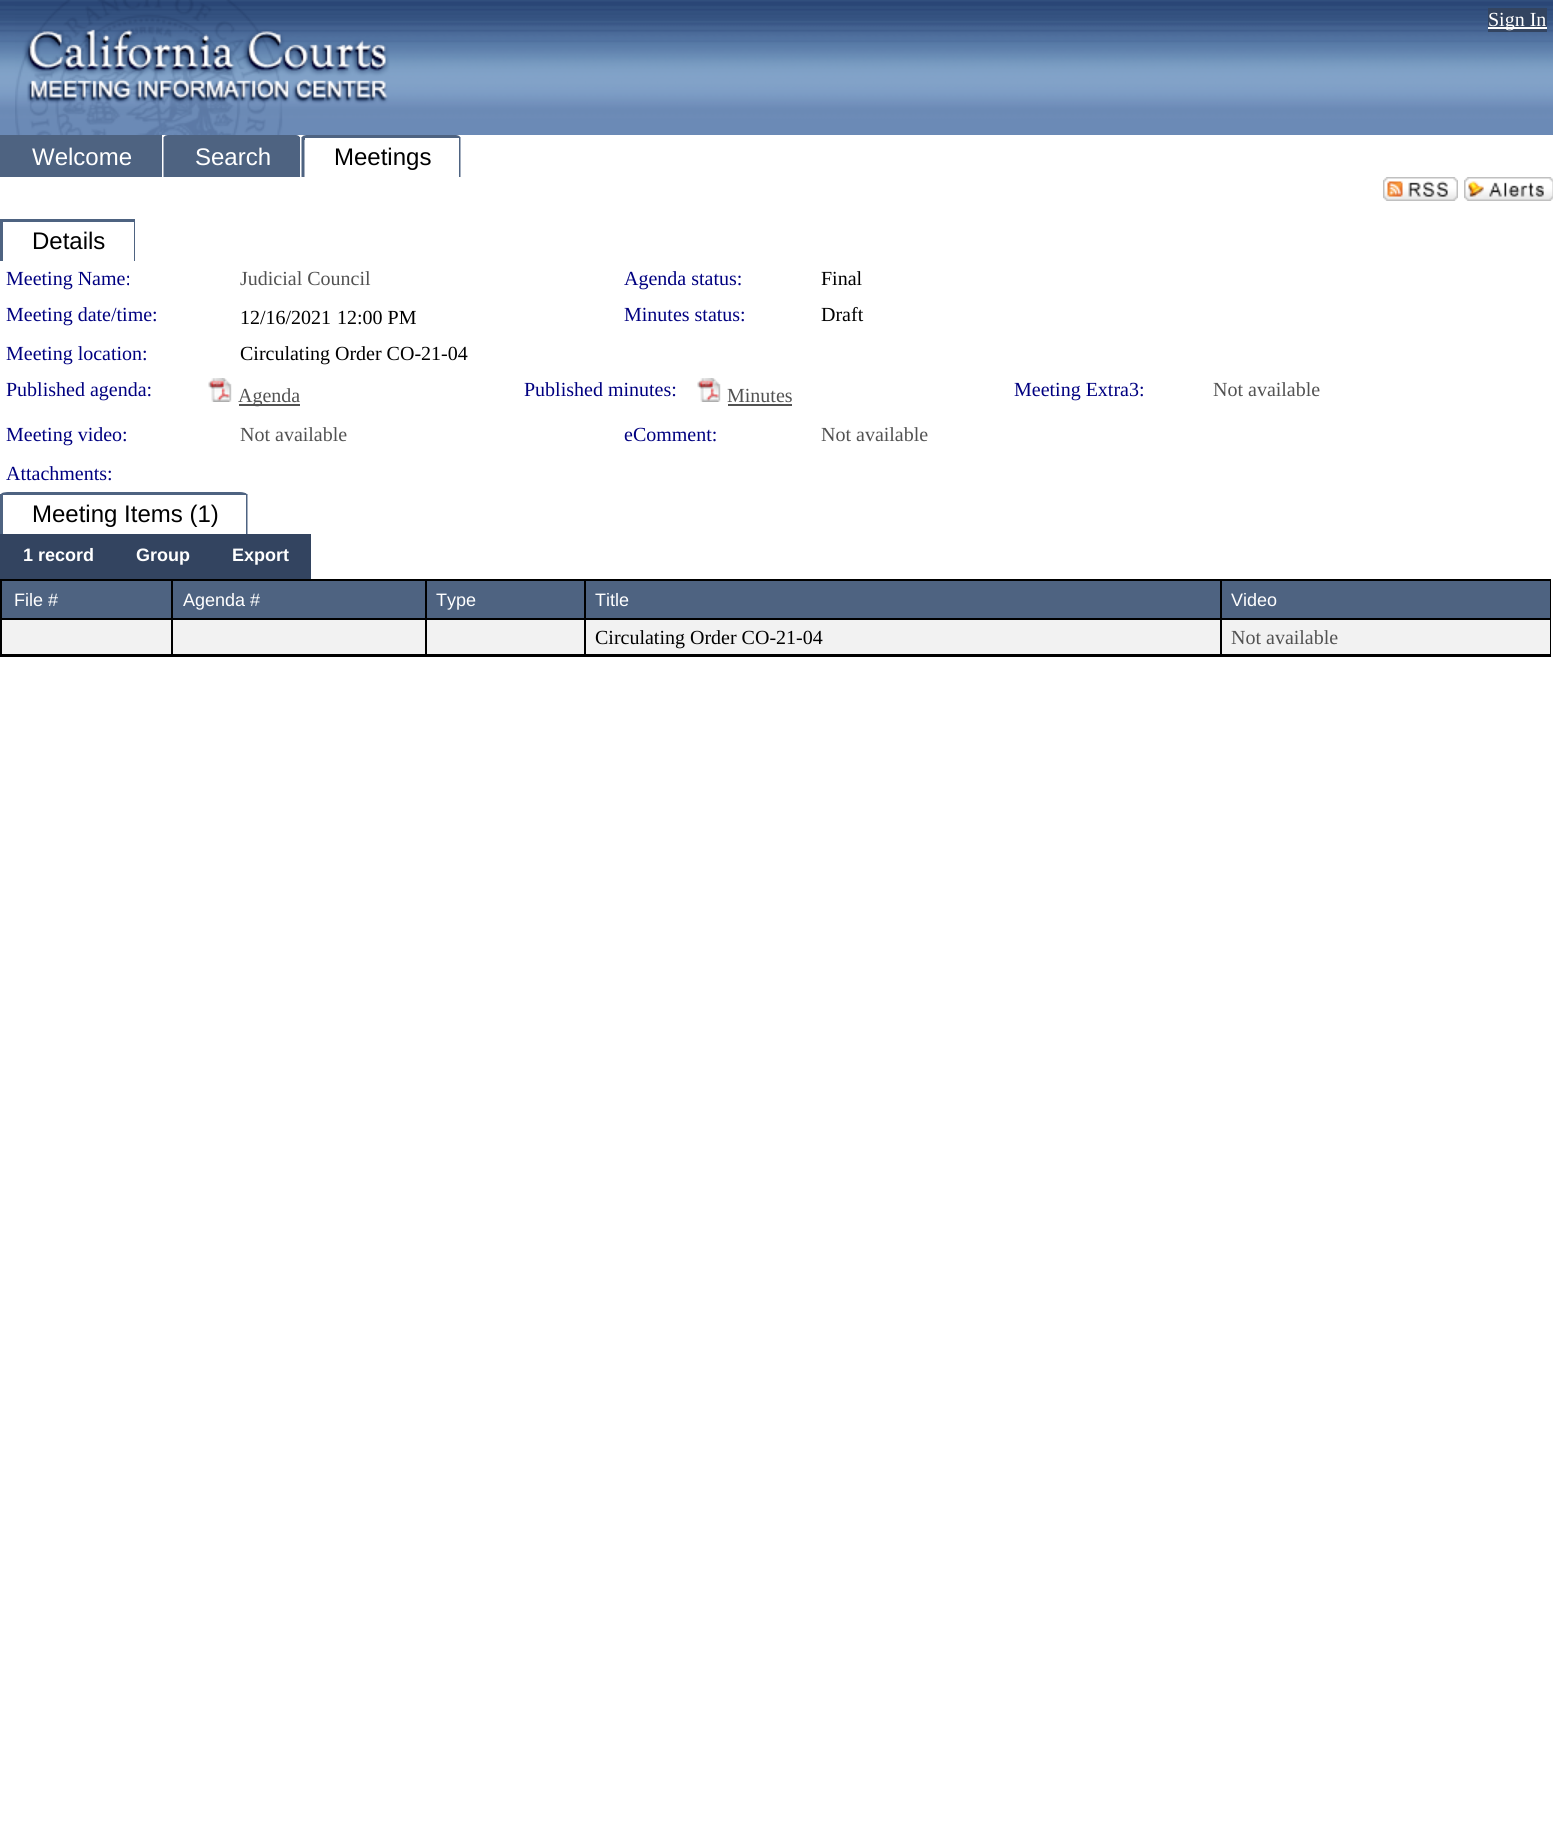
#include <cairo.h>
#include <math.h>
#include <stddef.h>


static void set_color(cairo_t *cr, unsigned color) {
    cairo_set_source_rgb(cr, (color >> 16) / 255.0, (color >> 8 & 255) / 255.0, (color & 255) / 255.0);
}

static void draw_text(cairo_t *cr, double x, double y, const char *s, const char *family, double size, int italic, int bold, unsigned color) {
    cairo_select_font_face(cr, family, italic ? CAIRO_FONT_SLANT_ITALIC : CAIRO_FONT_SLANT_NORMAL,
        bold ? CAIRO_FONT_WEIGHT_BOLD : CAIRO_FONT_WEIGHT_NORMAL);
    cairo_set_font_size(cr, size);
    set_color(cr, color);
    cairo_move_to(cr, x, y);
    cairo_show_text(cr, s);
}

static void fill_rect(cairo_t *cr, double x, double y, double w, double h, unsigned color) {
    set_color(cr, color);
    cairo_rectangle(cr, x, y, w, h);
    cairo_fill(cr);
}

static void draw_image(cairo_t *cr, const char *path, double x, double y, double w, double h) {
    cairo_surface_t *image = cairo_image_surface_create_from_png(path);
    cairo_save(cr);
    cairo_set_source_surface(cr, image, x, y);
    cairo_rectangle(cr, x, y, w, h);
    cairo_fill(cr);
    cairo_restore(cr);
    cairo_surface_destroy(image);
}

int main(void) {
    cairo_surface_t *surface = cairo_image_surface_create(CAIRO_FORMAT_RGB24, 1553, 1832);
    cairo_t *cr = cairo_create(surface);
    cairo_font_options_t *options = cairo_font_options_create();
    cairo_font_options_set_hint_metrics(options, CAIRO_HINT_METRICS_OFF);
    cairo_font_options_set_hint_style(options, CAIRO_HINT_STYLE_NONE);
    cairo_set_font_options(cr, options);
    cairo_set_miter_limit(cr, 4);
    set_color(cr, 0xFFFFFF);
    cairo_paint(cr);
    draw_image(cr, "assets/img1.png", 0, 0, 1553, 135);
    draw_image(cr, "assets/img2.png", 15, 0, 375, 135);
    fill_rect(cr, 1488, 8, 59, 24, 0x334460);
    fill_rect(cr, 1488, 27, 59, 2, 0xFFFFFF);
    draw_text(cr, 1488, 26, "Sign In", "Liberation Serif", 20, 0, 0, 0xFFFFFF);
    fill_rect(cr, 0, 135, 162, 42, 0x4E6381);
    draw_text(cr, 32, 165, "Welcome", "Liberation Sans", 24, 0, 0, 0xFFFFFF);
    draw_image(cr, "assets/img3.png", 163, 135, 137, 42);
    draw_text(cr, 195, 165, "Search", "Liberation Sans", 24, 0, 0, 0xFFFFFF);
    draw_image(cr, "assets/img4.png", 301, 135, 160, 42);
    fill_rect(cr, 305, 138, 154, 39, 0xFFFFFF);
    fill_rect(cr, 304, 140, 1, 37, 0xA7B1C0);
    draw_text(cr, 334, 165, "Meetings", "Liberation Sans", 24, 0, 0, 0x000000);
    draw_image(cr, "assets/img5.png", 1383, 177, 75, 24);
    draw_image(cr, "assets/img6.png", 1464, 177, 89, 24);
    fill_rect(cr, 0, 219, 135, 42, 0x4E6381);
    fill_rect(cr, 3, 222, 131, 39, 0xFFFFFF);
    draw_text(cr, 32, 249, "Details", "Liberation Sans", 24, 0, 0, 0x000000);
    draw_text(cr, 6, 285, "Meeting Name:", "Liberation Serif", 20, 0, 0, 0x000080);
    draw_text(cr, 240, 285, "Judicial Council", "Liberation Serif", 20, 0, 0, 0x525252);
    draw_text(cr, 624, 285, "Agenda status:", "Liberation Serif", 20, 0, 0, 0x000080);
    draw_text(cr, 821, 285, "Final", "Liberation Serif", 20, 0, 0, 0x000000);
    draw_text(cr, 6, 321, "Meeting date/time:", "Liberation Serif", 20, 0, 0, 0x000080);
    draw_text(cr, 240, 324, "12/16/2021", "Liberation Serif", 20, 0, 0, 0x000000);
    draw_text(cr, 337, 324, "12:00 PM", "Liberation Serif", 20, 0, 0, 0x000000);
    draw_text(cr, 624, 321, "Minutes status:", "Liberation Serif", 20, 0, 0, 0x000080);
    draw_text(cr, 821, 321, "Draft", "Liberation Serif", 20, 0, 0, 0x000000);
    draw_text(cr, 6, 360, "Meeting location:", "Liberation Serif", 20, 0, 0, 0x000080);
    draw_text(cr, 240, 360, "Circulating Order CO-21-04", "Liberation Serif", 20, 0, 0, 0x000000);
    draw_text(cr, 6, 396, "Published agenda:", "Liberation Serif", 20, 0, 0, 0x000080);
    draw_image(cr, "assets/img7.png", 208, 378, 24, 24);
    fill_rect(cr, 239, 404, 61, 2, 0x525252);
    draw_text(cr, 238, 402, "Agenda", "Liberation Serif", 20, 0, 0, 0x525252);
    draw_text(cr, 524, 396, "Published minutes:", "Liberation Serif", 20, 0, 0, 0x000080);
    draw_image(cr, "assets/img8.png", 697, 378, 24, 24);
    draw_text(cr, 727, 402, "Minutes", "Liberation Serif", 20, 0, 0, 0x525252);
    fill_rect(cr, 728, 404, 64, 2, 0x525252);
    draw_text(cr, 1014, 396, "Meeting Extra3:", "Liberation Serif", 20, 0, 0, 0x000080);
    draw_text(cr, 1213, 396, "Not available", "Liberation Serif", 20, 0, 0, 0x525252);
    draw_text(cr, 6, 441, "Meeting video:", "Liberation Serif", 20, 0, 0, 0x000080);
    draw_text(cr, 240, 441, "Not available", "Liberation Serif", 20, 0, 0, 0x525252);
    draw_text(cr, 624, 441, "eComment:", "Liberation Serif", 20, 0, 0, 0x000080);
    draw_text(cr, 821, 441, "Not available", "Liberation Serif", 20, 0, 0, 0x525252);
    draw_text(cr, 6, 480, "Attachments:", "Liberation Serif", 20, 0, 0, 0x000080);
    draw_image(cr, "assets/img9.png", 0, 492, 248, 42);
    fill_rect(cr, 3, 495, 243, 39, 0xFFFFFF);
    draw_text(cr, 32, 522, "Meeting Items (1)", "Liberation Sans", 24, 0, 0, 0x000000);
    fill_rect(cr, 0, 534, 311, 45, 0x334460);
    draw_text(cr, 23, 561, "1 record", "Liberation Sans", 18, 0, 1, 0xFFFFFF);
    draw_text(cr, 136, 561, "Group", "Liberation Sans", 18, 0, 1, 0xFFFFFF);
    draw_text(cr, 232, 561, "Export", "Liberation Sans", 18, 0, 1, 0xFFFFFF);
    cairo_rectangle(cr, 1, 580, 1549, 76);
    set_color(cr, 0x000000);
    cairo_stroke(cr);
    fill_rect(cr, 2, 581, 169, 37, 0x4E6381);
    fill_rect(cr, 2, 618, 1548, 2, 0x000000);
    draw_text(cr, 14, 606, "File #", "Liberation Sans", 18, 0, 0, 0xFFFFFF);
    fill_rect(cr, 173, 581, 252, 37, 0x4E6381);
    fill_rect(cr, 171, 581, 2, 39, 0x000000);
    draw_text(cr, 183, 606, "Agenda #", "Liberation Sans", 18, 0, 0, 0xFFFFFF);
    fill_rect(cr, 427, 581, 157, 37, 0x4E6381);
    fill_rect(cr, 425, 581, 2, 39, 0x000000);
    draw_text(cr, 436, 606, "Type", "Liberation Sans", 18, 0, 0, 0xFFFFFF);
    fill_rect(cr, 586, 581, 634, 37, 0x4E6381);
    fill_rect(cr, 584, 581, 2, 39, 0x000000);
    draw_text(cr, 595, 606, "Title", "Liberation Sans", 18, 0, 0, 0xFFFFFF);
    fill_rect(cr, 1222, 581, 328, 37, 0x4E6381);
    fill_rect(cr, 1220, 581, 2, 39, 0x000000);
    draw_text(cr, 1231, 606, "Video", "Liberation Sans", 18, 0, 0, 0xFFFFFF);
    fill_rect(cr, 2, 620, 169, 34, 0xF2F2F2);
    fill_rect(cr, 2, 654, 1548, 1, 0x000000);
    fill_rect(cr, 173, 620, 252, 34, 0xF2F2F2);
    fill_rect(cr, 171, 620, 2, 36, 0x000000);
    fill_rect(cr, 427, 620, 157, 34, 0xF2F2F2);
    fill_rect(cr, 425, 620, 2, 36, 0x000000);
    fill_rect(cr, 586, 620, 634, 34, 0xF2F2F2);
    fill_rect(cr, 584, 620, 2, 36, 0x000000);
    draw_text(cr, 595, 644, "Circulating Order CO-21-04", "Liberation Serif", 20, 0, 0, 0x000000);
    fill_rect(cr, 1222, 620, 328, 34, 0xF2F2F2);
    fill_rect(cr, 1220, 620, 2, 36, 0x000000);
    draw_text(cr, 1231, 644, "Not available", "Liberation Serif", 20, 0, 0, 0x525252);
    cairo_surface_write_to_png(surface, "output.png");
    cairo_font_options_destroy(options);
    cairo_destroy(cr);
    cairo_surface_destroy(surface);
    return 0;
}
